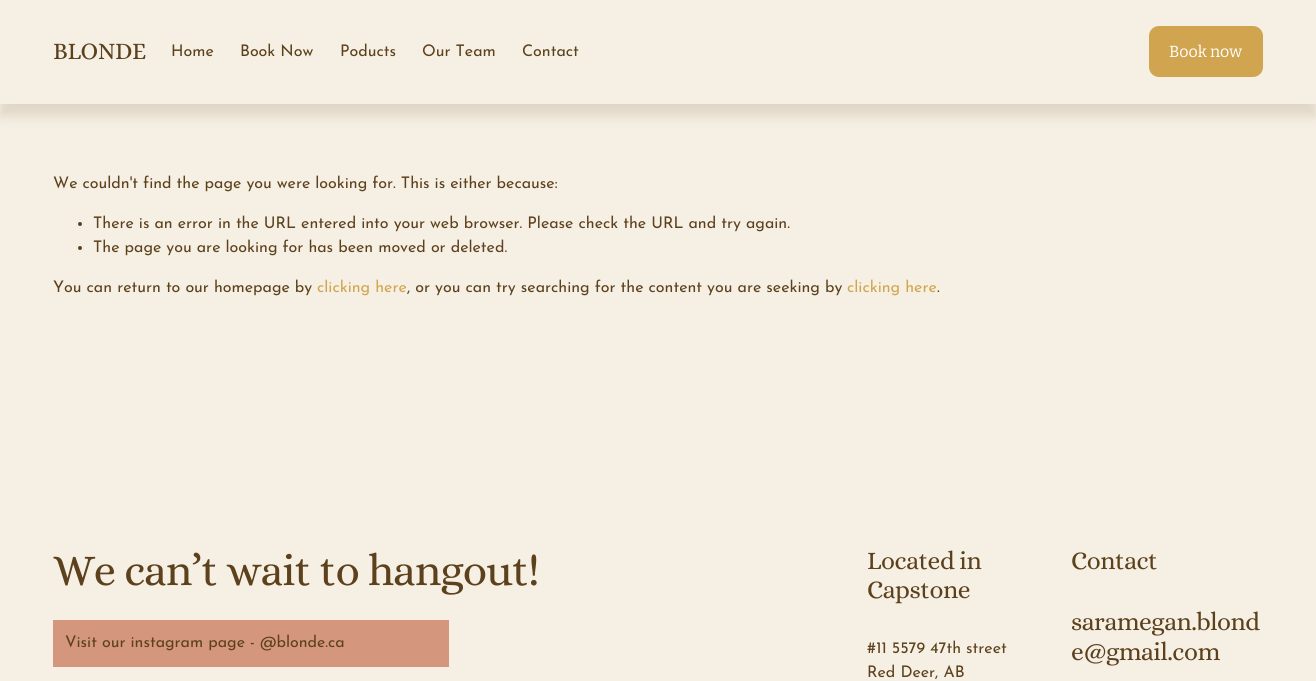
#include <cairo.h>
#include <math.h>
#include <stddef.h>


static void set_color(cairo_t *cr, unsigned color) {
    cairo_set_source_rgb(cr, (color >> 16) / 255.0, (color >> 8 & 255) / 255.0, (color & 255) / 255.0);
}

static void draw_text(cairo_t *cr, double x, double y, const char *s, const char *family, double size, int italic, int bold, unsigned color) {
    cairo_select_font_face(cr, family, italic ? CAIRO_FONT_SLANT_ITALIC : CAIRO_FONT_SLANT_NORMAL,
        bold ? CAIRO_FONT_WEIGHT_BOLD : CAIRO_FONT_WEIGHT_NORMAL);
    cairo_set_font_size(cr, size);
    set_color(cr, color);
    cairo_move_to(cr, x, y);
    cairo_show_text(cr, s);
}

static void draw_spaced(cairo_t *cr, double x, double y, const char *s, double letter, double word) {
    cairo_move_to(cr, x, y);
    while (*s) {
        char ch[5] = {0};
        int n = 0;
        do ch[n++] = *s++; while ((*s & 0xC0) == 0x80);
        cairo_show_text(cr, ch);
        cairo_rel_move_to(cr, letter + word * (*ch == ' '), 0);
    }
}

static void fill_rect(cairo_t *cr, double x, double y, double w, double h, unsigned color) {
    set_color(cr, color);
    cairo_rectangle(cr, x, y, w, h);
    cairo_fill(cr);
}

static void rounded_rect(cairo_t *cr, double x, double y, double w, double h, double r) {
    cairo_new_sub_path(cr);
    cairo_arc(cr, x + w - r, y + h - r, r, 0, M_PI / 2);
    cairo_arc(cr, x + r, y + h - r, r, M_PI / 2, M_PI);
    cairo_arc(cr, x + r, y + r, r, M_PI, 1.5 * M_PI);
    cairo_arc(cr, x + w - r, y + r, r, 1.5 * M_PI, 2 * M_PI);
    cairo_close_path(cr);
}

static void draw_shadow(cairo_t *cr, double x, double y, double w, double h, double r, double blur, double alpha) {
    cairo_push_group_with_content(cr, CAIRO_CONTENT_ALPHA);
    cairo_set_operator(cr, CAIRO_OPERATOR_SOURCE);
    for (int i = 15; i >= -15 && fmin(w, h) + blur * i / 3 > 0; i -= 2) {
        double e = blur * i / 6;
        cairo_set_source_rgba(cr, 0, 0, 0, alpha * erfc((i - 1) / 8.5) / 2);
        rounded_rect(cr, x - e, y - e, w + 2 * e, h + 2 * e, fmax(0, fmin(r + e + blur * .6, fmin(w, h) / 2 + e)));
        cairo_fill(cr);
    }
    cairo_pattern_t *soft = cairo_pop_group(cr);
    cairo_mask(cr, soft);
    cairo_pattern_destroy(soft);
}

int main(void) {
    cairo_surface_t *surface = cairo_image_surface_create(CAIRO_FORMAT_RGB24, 1316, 681);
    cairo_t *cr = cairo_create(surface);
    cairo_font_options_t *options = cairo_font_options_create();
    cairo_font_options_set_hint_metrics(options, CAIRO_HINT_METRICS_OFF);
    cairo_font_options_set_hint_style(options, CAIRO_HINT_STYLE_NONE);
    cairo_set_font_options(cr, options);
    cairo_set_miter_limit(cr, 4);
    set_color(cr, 0xF6F0E4);
    cairo_paint(cr);
    cairo_save(cr);
    cairo_rectangle(cr, 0, 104, 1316, 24);
    cairo_clip(cr);
    set_color(cr, 0xDFD6C6);
    draw_shadow(cr, 0, 12, 1316, 104, 0, 6, 1);
    cairo_restore(cr);
    cairo_select_font_face(cr, "Alice", CAIRO_FONT_SLANT_NORMAL, CAIRO_FONT_WEIGHT_NORMAL);
    cairo_set_font_size(cr, 24);
    set_color(cr, 0x5C411C);
    draw_spaced(cr, 53, 59, "BLONDE", -0.5, 0);
    draw_text(cr, 171, 56, "Home", "Josefin Sans", 16, 0, 0, 0x5C411C);
    draw_text(cr, 240, 56, "Book Now", "Josefin Sans", 16, 0, 0, 0x5C411C);
    draw_text(cr, 340, 56, "Poducts", "Josefin Sans", 16, 0, 0, 0x5C411C);
    draw_text(cr, 422, 56, "Our Team", "Josefin Sans", 16, 0, 0, 0x5C411C);
    draw_text(cr, 522, 56, "Contact", "Josefin Sans", 16, 0, 0, 0x5C411C);
    set_color(cr, 0xD1A550);
    rounded_rect(cr, 1149, 26, 114, 51, 10);
    cairo_fill(cr);
    draw_text(cr, 1169, 57, "Book now", "Bitter", 16, 0, 0, 0xFFFFFF);
    draw_text(cr, 53, 188, "We couldn't find the page you were looking for. This is either because:", "Josefin Sans", 16, 0, 0, 0x5C411C);
    cairo_new_path(cr);
    cairo_arc(cr, 80, 224, 2, 0, 2 * M_PI);
    cairo_fill(cr);
    draw_text(cr, 93, 228, "There is an error in the URL entered into your web browser. Please check the URL and try again.", "Josefin Sans", 16, 0, 0, 0x5C411C);
    cairo_new_path(cr);
    cairo_arc(cr, 80, 248, 2, 0, 2 * M_PI);
    cairo_fill(cr);
    draw_text(cr, 93, 252, "The page you are looking for has been moved or deleted.", "Josefin Sans", 16, 0, 0, 0x5C411C);
    draw_text(cr, 53, 292, "You can return to our homepage by", "Josefin Sans", 16, 0, 0, 0x5C411C);
    draw_text(cr, 317, 292, "clicking here", "Josefin Sans", 16, 0, 0, 0xD1A550);
    draw_text(cr, 407, 292, ", or you can try searching for the content you are seeking by", "Josefin Sans", 16, 0, 0, 0x5C411C);
    draw_text(cr, 847, 292, "clicking here", "Josefin Sans", 16, 0, 0, 0xD1A550);
    draw_text(cr, 937, 292, ".", "Josefin Sans", 16, 0, 0, 0x5C411C);
    cairo_select_font_face(cr, "Alice", CAIRO_FONT_SLANT_NORMAL, CAIRO_FONT_WEIGHT_NORMAL);
    cairo_set_font_size(cr, 44.5);
    draw_spaced(cr, 53, 585, "We can’t wait to hangout!", -0.9, 0);
    cairo_set_font_size(cr, 25.5);
    draw_spaced(cr, 867, 569, "Located in", -0.5, 0);
    draw_spaced(cr, 867, 598, "Capstone", -0.5, 0);
    draw_text(cr, 867, 653, "#11 5579 47th street", "Josefin Sans", 16, 0, 0, 0x5C411C);
    draw_text(cr, 867, 677, "Red Deer, AB", "Josefin Sans", 16, 0, 0, 0x5C411C);
    cairo_select_font_face(cr, "Alice", CAIRO_FONT_SLANT_NORMAL, CAIRO_FONT_WEIGHT_NORMAL);
    cairo_set_font_size(cr, 25.5);
    draw_spaced(cr, 1071, 569, "Contact", -0.5, 0);
    draw_spaced(cr, 1071, 630, "saramegan.blond", -0.5, 0);
    draw_spaced(cr, 1071, 660, "e@gmail.com", -0.5, 0);
    fill_rect(cr, 53, 620, 396, 47, 0xD4967D);
    draw_text(cr, 65, 647, "Visit our instagram page - @blonde.ca", "Josefin Sans", 16, 0, 0, 0x5C411C);
    cairo_surface_write_to_png(surface, "output.png");
    cairo_font_options_destroy(options);
    cairo_destroy(cr);
    cairo_surface_destroy(surface);
    return 0;
}
